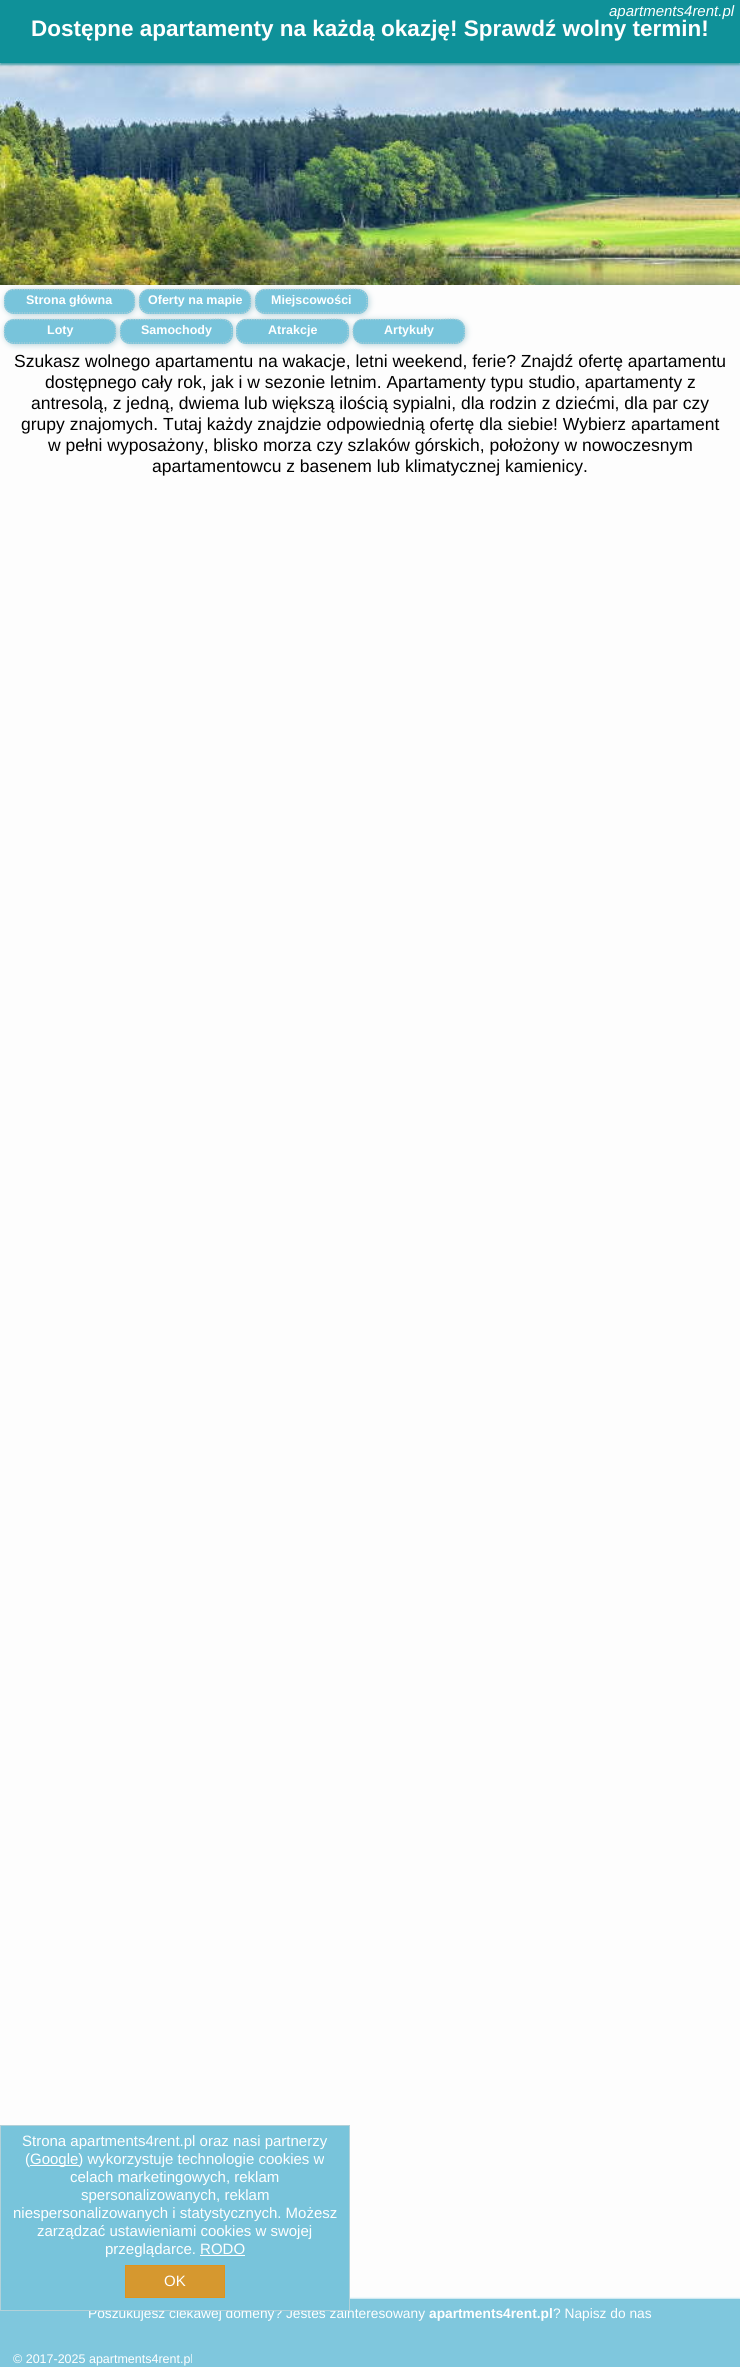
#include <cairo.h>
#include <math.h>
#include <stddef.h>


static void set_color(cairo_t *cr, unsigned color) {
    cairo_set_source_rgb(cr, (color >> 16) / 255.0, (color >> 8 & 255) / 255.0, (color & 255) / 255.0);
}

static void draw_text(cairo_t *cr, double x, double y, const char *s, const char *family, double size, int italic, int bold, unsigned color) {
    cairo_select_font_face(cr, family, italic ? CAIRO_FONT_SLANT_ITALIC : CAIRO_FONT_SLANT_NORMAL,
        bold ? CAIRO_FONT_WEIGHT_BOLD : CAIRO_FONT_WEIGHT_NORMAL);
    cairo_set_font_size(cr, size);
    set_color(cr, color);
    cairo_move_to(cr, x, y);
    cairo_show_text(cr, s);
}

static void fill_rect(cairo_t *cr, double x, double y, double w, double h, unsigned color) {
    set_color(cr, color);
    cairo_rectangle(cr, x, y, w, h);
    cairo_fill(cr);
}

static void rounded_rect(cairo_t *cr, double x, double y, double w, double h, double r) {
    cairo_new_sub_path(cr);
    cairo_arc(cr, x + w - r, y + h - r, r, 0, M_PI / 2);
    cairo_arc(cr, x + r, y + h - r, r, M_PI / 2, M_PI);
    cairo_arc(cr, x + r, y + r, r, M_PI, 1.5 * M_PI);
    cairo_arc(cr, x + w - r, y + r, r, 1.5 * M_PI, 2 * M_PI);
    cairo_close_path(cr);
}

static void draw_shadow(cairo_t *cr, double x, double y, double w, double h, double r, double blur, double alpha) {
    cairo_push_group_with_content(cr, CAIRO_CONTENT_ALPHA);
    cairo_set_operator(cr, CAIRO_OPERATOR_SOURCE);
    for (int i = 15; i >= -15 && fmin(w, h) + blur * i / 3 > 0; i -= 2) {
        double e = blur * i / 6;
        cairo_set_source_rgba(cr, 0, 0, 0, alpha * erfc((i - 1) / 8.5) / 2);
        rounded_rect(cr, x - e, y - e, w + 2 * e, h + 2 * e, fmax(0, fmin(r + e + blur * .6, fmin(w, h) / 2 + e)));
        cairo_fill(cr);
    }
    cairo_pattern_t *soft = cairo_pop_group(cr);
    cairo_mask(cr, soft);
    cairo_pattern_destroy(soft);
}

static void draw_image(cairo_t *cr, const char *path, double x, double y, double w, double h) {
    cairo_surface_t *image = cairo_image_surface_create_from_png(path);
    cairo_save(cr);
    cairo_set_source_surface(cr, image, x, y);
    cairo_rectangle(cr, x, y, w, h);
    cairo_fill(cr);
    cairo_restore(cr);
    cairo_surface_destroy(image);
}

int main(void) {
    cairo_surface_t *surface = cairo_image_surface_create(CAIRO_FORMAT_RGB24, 740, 2367);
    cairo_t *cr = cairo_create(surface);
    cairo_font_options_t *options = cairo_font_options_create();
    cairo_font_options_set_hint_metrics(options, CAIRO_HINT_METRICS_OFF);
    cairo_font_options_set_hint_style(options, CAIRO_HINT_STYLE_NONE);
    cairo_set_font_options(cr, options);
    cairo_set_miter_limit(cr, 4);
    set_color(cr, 0xFDFDFD);
    cairo_paint(cr);
    draw_image(cr, "assets/img1.png", 0, 62, 740, 223);
    cairo_save(cr);
    cairo_set_fill_rule(cr, CAIRO_FILL_RULE_EVEN_ODD);
    cairo_new_path(cr);
    cairo_move_to(cr, 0, 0);
    cairo_line_to(cr, 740, 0);
    cairo_line_to(cr, 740, 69);
    cairo_line_to(cr, 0, 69);
    cairo_close_path(cr);
    cairo_move_to(cr, 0, 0);
    cairo_line_to(cr, 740, 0);
    cairo_line_to(cr, 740, 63);
    cairo_line_to(cr, 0, 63);
    cairo_close_path(cr);
    cairo_clip(cr);
    set_color(cr, 0x4CA1A9);
    draw_shadow(cr, 0, 3, 740, 62, 0, 1, 1);
    cairo_restore(cr);
    cairo_set_source_rgba(cr, 0.016, 0.549, 0.58, 0.95);
    cairo_rectangle(cr, 0, 0, 740, 63);
    cairo_fill(cr);
    draw_text(cr, 609, 16, "apartments4rent.pl", "Liberation Sans", 15, 1, 0, 0xFFFFFF);
    draw_text(cr, 31, 36, "Dostępne apartamenty na każdą okazję! Sprawdź wolny termin!", "Liberation Sans", 22.5, 0, 1, 0xFFFFFF);
    set_color(cr, 0xB2D1D9);
    draw_shadow(cr, 5, 290, 131, 25, 10, 3, 1);
    set_color(cr, 0x78C4DB);
    rounded_rect(cr, 4, 289, 131, 25, 10);
    cairo_fill(cr);
    cairo_new_path(cr);
    cairo_move_to(cr, 14, 289.5);
    cairo_line_to(cr, 125, 289.5);
    cairo_curve_to(cr, 130, 289.5, 134.5, 293.5, 134.5, 299);
    cairo_line_to(cr, 134.5, 304);
    cairo_curve_to(cr, 134.5, 309, 130, 313, 125, 313);
    cairo_line_to(cr, 14, 313);
    cairo_curve_to(cr, 8.5, 313, 4.5, 309, 4.5, 304);
    cairo_line_to(cr, 4.5, 299);
    cairo_curve_to(cr, 4.5, 293.5, 8.5, 289.5, 14, 289.5);
    cairo_close_path(cr);
    set_color(cr, 0xB2D1D9);
    cairo_set_line_width(cr, 1.2);
    cairo_set_dash(cr, (double[]){1.25, 1.25}, 2, 0);
    cairo_stroke(cr);
    draw_text(cr, 26, 304, "Strona główna", "Liberation Sans", 12.5, 0, 1, 0xFFFFFF);
    set_color(cr, 0xB2D1D9);
    draw_shadow(cr, 140, 290, 113, 25, 10, 3, 1);
    set_color(cr, 0x78C4DB);
    rounded_rect(cr, 139, 289, 112, 25, 10);
    cairo_fill(cr);
    cairo_new_path(cr);
    cairo_move_to(cr, 149, 289.5);
    cairo_line_to(cr, 226, 289.5);
    cairo_curve_to(cr, 232.5, 289.5, 248.5, 286, 250.5, 297);
    cairo_line_to(cr, 250.5, 302);
    cairo_curve_to(cr, 250.5, 316.5, 236.5, 313, 226, 313);
    cairo_line_to(cr, 149, 313);
    cairo_curve_to(cr, 136, 313, 136, 289.5, 149, 289.5);
    cairo_close_path(cr);
    set_color(cr, 0xB2D1D9);
    cairo_stroke(cr);
    draw_text(cr, 148, 304, "Oferty na mapie", "Liberation Sans", 12.5, 0, 1, 0xFFFFFF);
    set_color(cr, 0xB2D1D9);
    draw_shadow(cr, 256, 290, 113, 25, 10, 3, 1);
    set_color(cr, 0x78C4DB);
    rounded_rect(cr, 255, 289, 113, 25, 10);
    cairo_fill(cr);
    cairo_new_path(cr);
    cairo_move_to(cr, 265, 289.5);
    cairo_line_to(cr, 342, 289.5);
    cairo_curve_to(cr, 349, 289.5, 364.5, 286, 366.5, 297);
    cairo_line_to(cr, 367, 302);
    cairo_curve_to(cr, 367, 316.5, 352.5, 313, 342, 313);
    cairo_line_to(cr, 265, 313);
    cairo_curve_to(cr, 252, 313, 252, 289.5, 265, 289.5);
    cairo_close_path(cr);
    set_color(cr, 0xB2D1D9);
    cairo_stroke(cr);
    draw_text(cr, 271, 304, "Miejscowości", "Liberation Sans", 12.5, 0, 1, 0xFFFFFF);
    set_color(cr, 0xB2D1D9);
    draw_shadow(cr, 5, 320, 113, 25, 10, 3, 1);
    set_color(cr, 0x78C4DB);
    rounded_rect(cr, 4, 319, 112, 25, 10);
    cairo_fill(cr);
    cairo_new_path(cr);
    cairo_move_to(cr, 14, 319.5);
    cairo_line_to(cr, 91, 319.5);
    cairo_curve_to(cr, 97.5, 319.5, 113.5, 316, 115.5, 327);
    cairo_line_to(cr, 115.5, 332);
    cairo_curve_to(cr, 115.5, 346.5, 101.5, 343, 91, 343);
    cairo_line_to(cr, 14, 343);
    cairo_curve_to(cr, 1, 343, 1, 319.5, 14, 319.5);
    cairo_close_path(cr);
    set_color(cr, 0xB2D1D9);
    cairo_stroke(cr);
    draw_text(cr, 47, 334, "Loty", "Liberation Sans", 12.5, 0, 1, 0xFFFFFF);
    set_color(cr, 0xB2D1D9);
    draw_shadow(cr, 121, 320, 113, 25, 10, 3, 1);
    set_color(cr, 0x78C4DB);
    rounded_rect(cr, 120, 319, 113, 25, 10);
    cairo_fill(cr);
    cairo_new_path(cr);
    cairo_move_to(cr, 130, 319.5);
    cairo_line_to(cr, 207, 319.5);
    cairo_curve_to(cr, 214, 319.5, 229.5, 316, 231.5, 327);
    cairo_line_to(cr, 232, 332);
    cairo_curve_to(cr, 232, 346.5, 217.5, 343, 207, 343);
    cairo_line_to(cr, 130, 343);
    cairo_curve_to(cr, 117, 343, 117, 319.5, 130, 319.5);
    cairo_close_path(cr);
    set_color(cr, 0xB2D1D9);
    cairo_stroke(cr);
    draw_text(cr, 141, 334, "Samochody", "Liberation Sans", 12.5, 0, 1, 0xFFFFFF);
    set_color(cr, 0xB2D1D9);
    draw_shadow(cr, 238, 320, 112, 25, 10, 3, 1);
    set_color(cr, 0x78C4DB);
    rounded_rect(cr, 236, 319, 113, 25, 10);
    cairo_fill(cr);
    cairo_new_path(cr);
    cairo_move_to(cr, 246, 319.5);
    cairo_line_to(cr, 323.5, 319.5);
    cairo_curve_to(cr, 330, 319.5, 346, 316, 348, 327);
    cairo_line_to(cr, 348, 332);
    cairo_curve_to(cr, 348, 346.5, 334, 343, 323.5, 343);
    cairo_line_to(cr, 246, 343);
    cairo_curve_to(cr, 233.5, 343, 233.5, 319.5, 246, 319.5);
    cairo_close_path(cr);
    set_color(cr, 0xB2D1D9);
    cairo_stroke(cr);
    draw_text(cr, 268, 334, "Atrakcje", "Liberation Sans", 12.5, 0, 1, 0xFFFFFF);
    set_color(cr, 0xB2D1D9);
    draw_shadow(cr, 354, 320, 112, 25, 10, 3, 1);
    set_color(cr, 0x78C4DB);
    rounded_rect(cr, 353, 319, 112, 25, 10);
    cairo_fill(cr);
    cairo_new_path(cr);
    cairo_move_to(cr, 362.5, 319.5);
    cairo_line_to(cr, 439.5, 319.5);
    cairo_curve_to(cr, 446.5, 319.5, 462, 316, 464, 327);
    cairo_line_to(cr, 464.5, 332);
    cairo_curve_to(cr, 464.5, 346.5, 450, 343, 439.5, 343);
    cairo_line_to(cr, 362.5, 343);
    cairo_curve_to(cr, 349.5, 343, 349.5, 319.5, 362.5, 319.5);
    cairo_close_path(cr);
    set_color(cr, 0xB2D1D9);
    cairo_stroke(cr);
    draw_text(cr, 384, 334, "Artykuły", "Liberation Sans", 12.5, 0, 1, 0xFFFFFF);
    draw_text(cr, 14, 367, "Szukasz wolnego apartamentu na wakacje, letni weekend, ferie? Znajdź ofertę apartamentu", "Liberation Sans", 17.5, 0, 0, 0x000000);
    draw_text(cr, 45, 388, "dostępnego cały rok, jak i w sezonie letnim. Apartamenty typu studio, apartamenty z", "Liberation Sans", 17.5, 0, 0, 0x000000);
    draw_text(cr, 31, 409, "antresolą, z jedną, dwiema lub większą ilością sypialni, dla rodzin z dziećmi, dla par czy", "Liberation Sans", 17.5, 0, 0, 0x000000);
    draw_text(cr, 21, 430, "grupy znajomych. Tutaj każdy znajdzie odpowiednią ofertę dla siebie! Wybierz apartament", "Liberation Sans", 17.5, 0, 0, 0x000000);
    draw_text(cr, 48, 451, "w pełni wyposażony, blisko morza czy szlaków górskich, położony w nowoczesnym", "Liberation Sans", 17.5, 0, 0, 0x000000);
    draw_text(cr, 152, 472, "apartamentowcu z basenem lub klimatycznej kamienicy.", "Liberation Sans", 17.5, 0, 0, 0x000000);
    set_color(cr, 0x78C4DB);
    draw_shadow(cr, 0, 2299, 740, 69, 0, 1, 1);
    fill_rect(cr, 0, 2299, 740, 68, 0x7FC7DD);
    draw_text(cr, 88, 2318, "Poszukujesz ciekawej domeny? Jesteś zainteresowany", "Liberation Sans", 13.75, 0, 0, 0xFFFFFF);
    set_color(cr, 0x78C4DB);
    cairo_rectangle(cr, 0.5, 2125.5, 349, 185);
    cairo_fill_preserve(cr);
    set_color(cr, 0xB2D1D9);
    cairo_set_line_width(cr, 1);
    cairo_set_dash(cr, NULL, 0, 0);
    cairo_stroke(cr);
    draw_text(cr, 22, 2146, "Strona apartments4rent.pl oraz nasi partnerzy", "Liberation Sans", 15, 0, 0, 0xFFFFFF);
    draw_text(cr, 25, 2164, "(", "Liberation Sans", 15, 0, 0, 0xFFFFFF);
    fill_rect(cr, 30, 2165, 49, 1, 0xFFFFFF);
    draw_text(cr, 30, 2164, "Google) wykorzystuje technologie cookies w", "Liberation Sans", 15, 0, 0, 0xFFFFFF);
    draw_text(cr, 70, 2182, "celach marketingowych, reklam", "Liberation Sans", 15, 0, 0, 0xFFFFFF);
    draw_text(cr, 81, 2200, "spersonalizowanych, reklam", "Liberation Sans", 15, 0, 0, 0xFFFFFF);
    draw_text(cr, 13, 2218, "niespersonalizowanych i statystycznych. Możesz", "Liberation Sans", 15, 0, 0, 0xFFFFFF);
    draw_text(cr, 37, 2236, "zarządzać ustawieniami cookies w swojej", "Liberation Sans", 15, 0, 0, 0xFFFFFF);
    draw_text(cr, 105, 2254, "przeglądarce. RODO", "Liberation Sans", 15, 0, 0, 0xFFFFFF);
    fill_rect(cr, 200, 2255, 45, 1, 0xFFFFFF);
    set_color(cr, 0xD6982F);
    cairo_rectangle(cr, 125.5, 2265.5, 99, 32);
    cairo_fill_preserve(cr);
    set_color(cr, 0xE0931C);
    cairo_stroke(cr);
    draw_text(cr, 164, 2286, "OK", "Liberation Sans", 15, 0, 0, 0xFFFFFF);
    draw_text(cr, 429, 2318, "apartments4rent.pl", "Liberation Sans", 13.75, 0, 1, 0xFFFFFF);
    draw_text(cr, 553, 2318, "? Napisz do nas", "Liberation Sans", 13.75, 0, 0, 0xFFFFFF);
    draw_text(cr, 13, 2363, "© 2017-2025 apartments4rent.pl", "Liberation Sans", 12.5, 0, 0, 0xFFFFFF);
    cairo_surface_write_to_png(surface, "output.png");
    cairo_font_options_destroy(options);
    cairo_destroy(cr);
    cairo_surface_destroy(surface);
    return 0;
}
